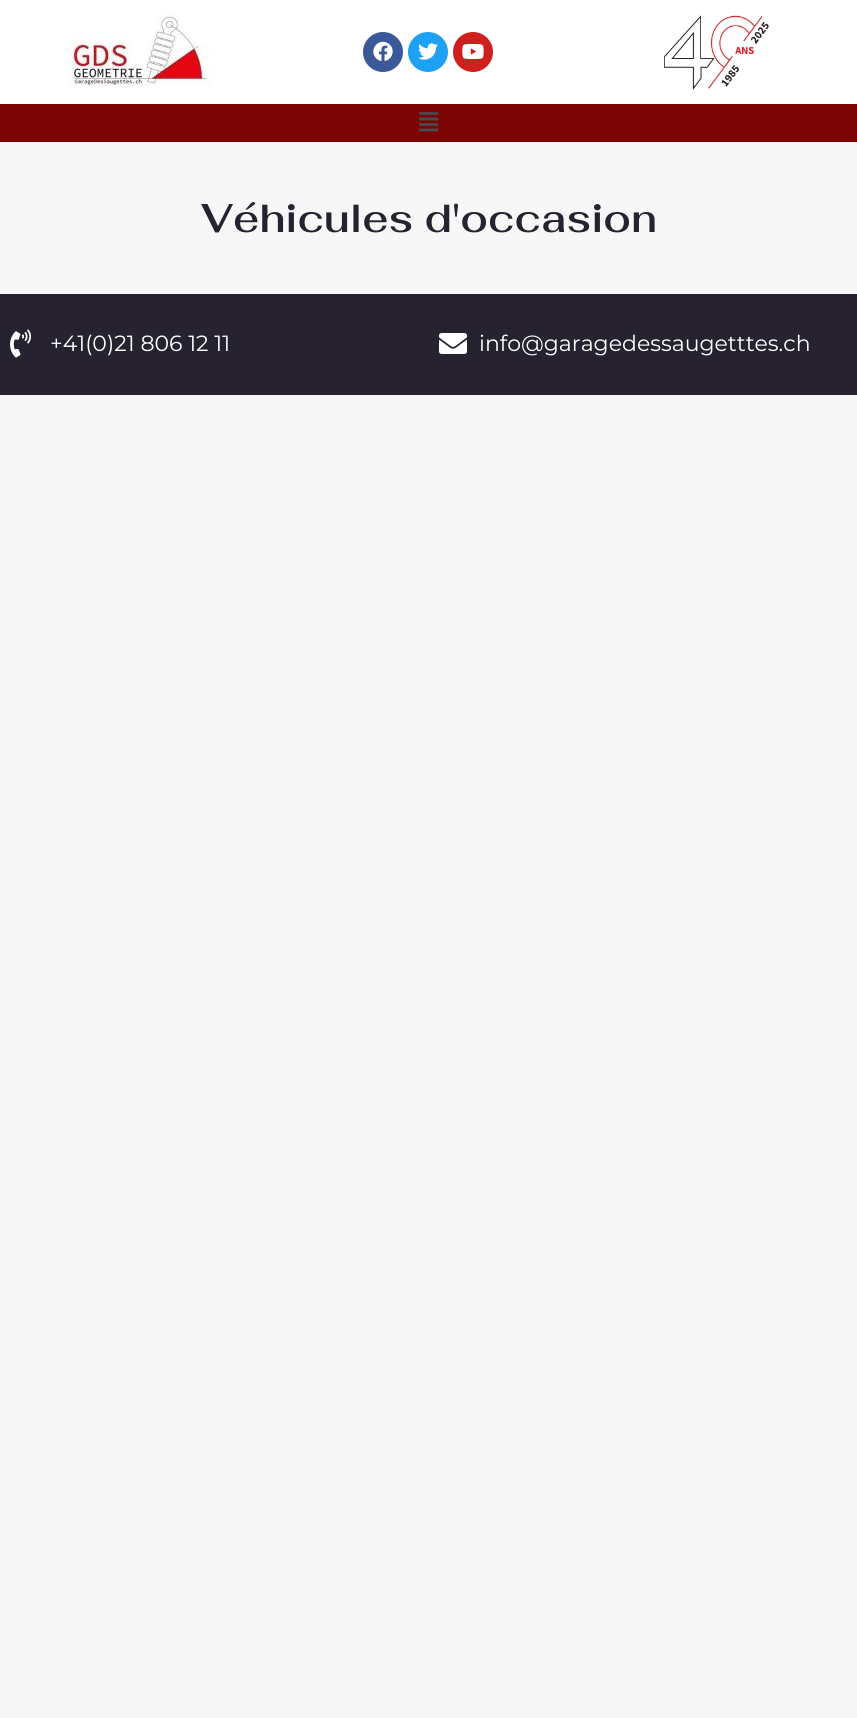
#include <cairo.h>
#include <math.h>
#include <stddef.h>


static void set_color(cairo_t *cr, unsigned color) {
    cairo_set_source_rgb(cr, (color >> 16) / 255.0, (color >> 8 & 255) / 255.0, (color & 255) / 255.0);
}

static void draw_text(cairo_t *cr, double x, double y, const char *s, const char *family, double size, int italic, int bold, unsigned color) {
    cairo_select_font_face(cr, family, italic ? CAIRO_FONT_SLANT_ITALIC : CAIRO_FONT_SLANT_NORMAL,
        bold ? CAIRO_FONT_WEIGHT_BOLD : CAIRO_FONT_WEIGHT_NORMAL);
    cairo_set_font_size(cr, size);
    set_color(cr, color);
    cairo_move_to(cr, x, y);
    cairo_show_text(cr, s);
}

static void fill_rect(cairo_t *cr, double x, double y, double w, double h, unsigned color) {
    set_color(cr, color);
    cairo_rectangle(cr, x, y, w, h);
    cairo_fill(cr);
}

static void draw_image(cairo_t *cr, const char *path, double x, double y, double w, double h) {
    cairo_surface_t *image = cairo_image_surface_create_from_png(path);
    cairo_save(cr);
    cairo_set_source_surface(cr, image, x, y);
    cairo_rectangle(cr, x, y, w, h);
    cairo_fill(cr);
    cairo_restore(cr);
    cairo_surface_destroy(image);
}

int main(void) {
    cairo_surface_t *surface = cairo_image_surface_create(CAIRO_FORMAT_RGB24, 857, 1718);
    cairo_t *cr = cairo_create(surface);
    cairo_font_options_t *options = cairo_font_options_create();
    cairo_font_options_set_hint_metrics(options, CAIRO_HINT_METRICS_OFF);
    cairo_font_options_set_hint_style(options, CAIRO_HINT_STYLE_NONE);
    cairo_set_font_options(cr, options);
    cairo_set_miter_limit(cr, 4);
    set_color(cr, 0xF7F7F7);
    cairo_paint(cr);
    fill_rect(cr, 0, 0, 857, 104, 0xFFFFFF);
    draw_image(cr, "assets/img1.png", 68, 14, 144, 72);
    set_color(cr, 0x3B5998);
    cairo_arc(cr, 383, 52, 20, 0, 2 * M_PI);
    cairo_fill(cr);
    draw_image(cr, "assets/img2.png", 373, 41, 20, 20);
    set_color(cr, 0x1DA1F2);
    cairo_arc(cr, 428, 52, 20, 0, 2 * M_PI);
    cairo_fill(cr);
    draw_image(cr, "assets/img3.png", 418, 43, 20, 17);
    set_color(cr, 0xCD201F);
    cairo_arc(cr, 473, 52, 20, 0, 2 * M_PI);
    cairo_fill(cr);
    draw_image(cr, "assets/img4.png", 462, 44, 22, 15);
    draw_image(cr, "assets/img5.png", 664, 15, 105, 75);
    fill_rect(cr, 0, 104, 857, 38, 0x7C0303);
    draw_image(cr, "assets/img6.png", 419, 112, 20, 20);
    draw_text(cr, 201, 232, "Véhicules d'occasion", "Fahkwang SemiBold", 40, 0, 0, 0x26222F);
    fill_rect(cr, 0, 294, 857, 101, 0x26222F);
    draw_image(cr, "assets/img7.png", 10, 329, 22, 29);
    draw_text(cr, 50, 351, "+41(0)21 806 12 11", "Montserrat", 22, 0, 0, 0xFFFFFF);
    draw_image(cr, "assets/img8.png", 439, 333, 28, 21);
    draw_text(cr, 479, 351, "info@garagedessaugetttes.ch", "Montserrat", 22, 0, 0, 0xFFFFFF);
    cairo_surface_write_to_png(surface, "output.png");
    cairo_font_options_destroy(options);
    cairo_destroy(cr);
    cairo_surface_destroy(surface);
    return 0;
}
